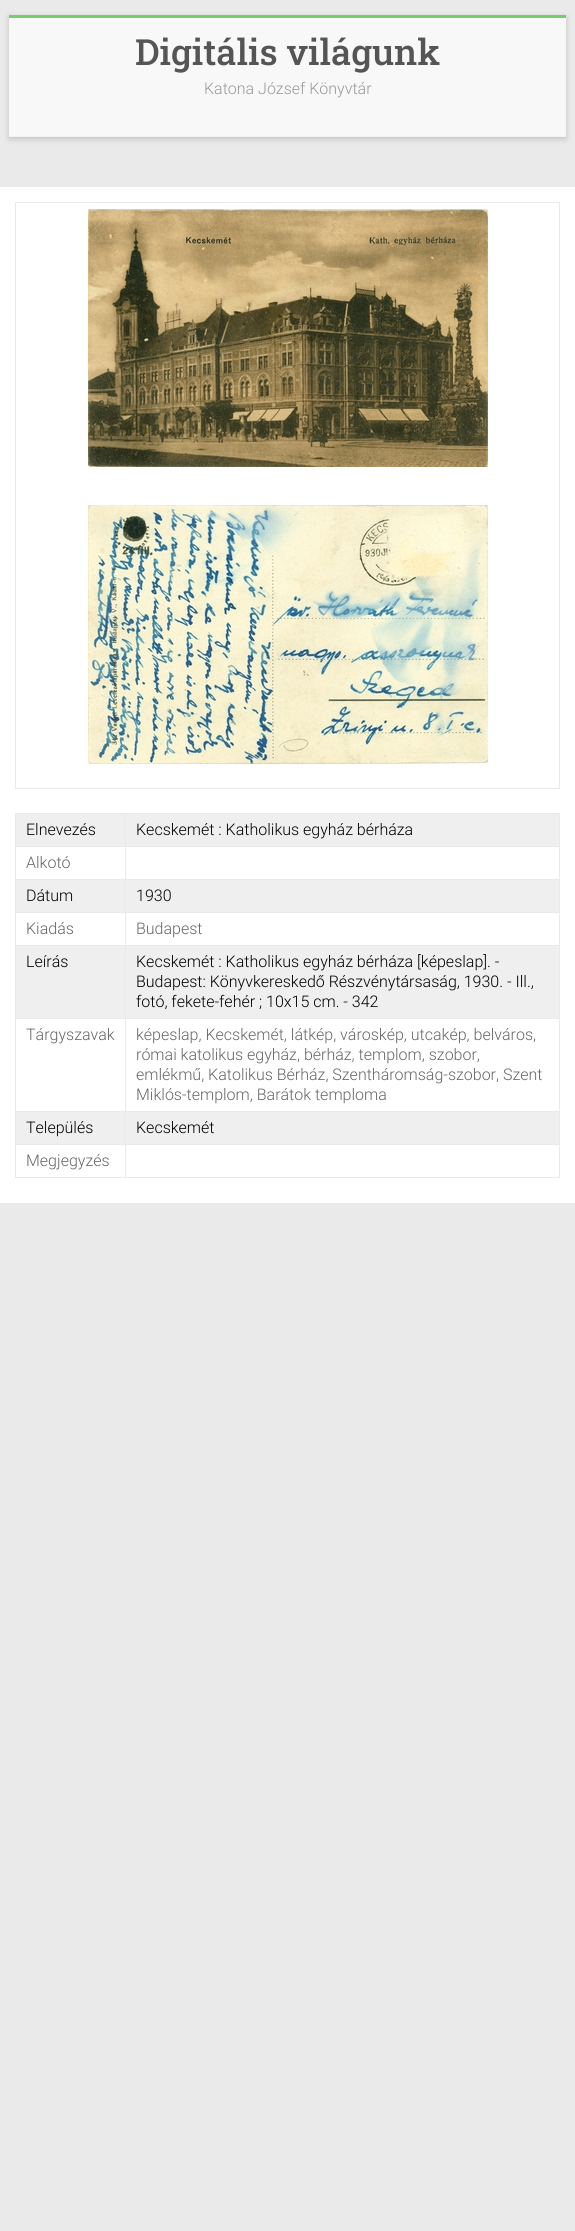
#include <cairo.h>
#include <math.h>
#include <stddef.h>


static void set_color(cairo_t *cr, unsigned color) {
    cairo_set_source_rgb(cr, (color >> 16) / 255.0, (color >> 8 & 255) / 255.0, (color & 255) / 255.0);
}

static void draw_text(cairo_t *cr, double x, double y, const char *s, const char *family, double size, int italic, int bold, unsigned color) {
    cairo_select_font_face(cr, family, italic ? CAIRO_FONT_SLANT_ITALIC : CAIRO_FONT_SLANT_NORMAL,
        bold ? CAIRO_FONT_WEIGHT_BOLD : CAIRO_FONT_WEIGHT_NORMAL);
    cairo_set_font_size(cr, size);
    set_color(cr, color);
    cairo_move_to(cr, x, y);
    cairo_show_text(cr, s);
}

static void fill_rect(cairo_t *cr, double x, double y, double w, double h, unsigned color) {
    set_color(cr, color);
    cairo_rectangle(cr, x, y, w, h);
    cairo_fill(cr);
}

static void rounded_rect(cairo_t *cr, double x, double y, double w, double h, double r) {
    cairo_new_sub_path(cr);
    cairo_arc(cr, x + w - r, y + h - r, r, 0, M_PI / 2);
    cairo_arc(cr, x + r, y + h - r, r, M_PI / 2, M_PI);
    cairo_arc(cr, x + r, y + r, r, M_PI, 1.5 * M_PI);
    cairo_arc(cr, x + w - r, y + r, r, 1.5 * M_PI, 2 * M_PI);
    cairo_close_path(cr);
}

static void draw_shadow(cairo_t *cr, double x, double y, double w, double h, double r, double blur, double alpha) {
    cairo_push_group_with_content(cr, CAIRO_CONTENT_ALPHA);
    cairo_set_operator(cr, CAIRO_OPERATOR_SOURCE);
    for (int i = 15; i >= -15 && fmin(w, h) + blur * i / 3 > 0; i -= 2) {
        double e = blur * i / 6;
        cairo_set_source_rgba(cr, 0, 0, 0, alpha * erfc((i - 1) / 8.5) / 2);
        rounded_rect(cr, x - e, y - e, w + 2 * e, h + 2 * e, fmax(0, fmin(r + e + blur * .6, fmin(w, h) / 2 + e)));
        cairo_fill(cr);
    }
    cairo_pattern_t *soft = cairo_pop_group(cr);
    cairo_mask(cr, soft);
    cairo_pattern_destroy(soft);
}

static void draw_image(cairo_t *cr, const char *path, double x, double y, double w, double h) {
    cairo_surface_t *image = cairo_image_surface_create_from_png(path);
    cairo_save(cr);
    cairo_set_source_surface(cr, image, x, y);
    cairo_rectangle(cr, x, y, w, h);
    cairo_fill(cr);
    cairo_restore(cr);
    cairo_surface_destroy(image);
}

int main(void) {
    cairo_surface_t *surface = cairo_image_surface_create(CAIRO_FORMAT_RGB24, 575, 2231);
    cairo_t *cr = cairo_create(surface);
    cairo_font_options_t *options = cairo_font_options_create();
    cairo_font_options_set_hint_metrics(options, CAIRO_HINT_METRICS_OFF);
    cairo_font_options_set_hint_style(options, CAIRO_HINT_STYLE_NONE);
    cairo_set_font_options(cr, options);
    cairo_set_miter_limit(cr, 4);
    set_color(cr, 0xEAEAEA);
    cairo_paint(cr);
    set_color(cr, 0x646464);
    draw_shadow(cr, 9, 17, 557, 122, 0, 3, 0.3);
    fill_rect(cr, 9, 15, 557, 3, 0x77CC6D);
    fill_rect(cr, 9, 18, 557, 118, 0xF8F8F8);
    fill_rect(cr, 9, 136, 557, 1, 0xF2F2F2);
    draw_text(cr, 135, 65, "Digitális világunk", "Roboto Slab Medium", 36, 0, 0, 0x555555);
    draw_text(cr, 204, 94, "Katona József Könyvtár", "Roboto Light", 16, 0, 0, 0x999999);
    fill_rect(cr, 0, 187, 575, 1016, 0xFFFFFF);
    fill_rect(cr, 15, 202, 545, 1, 0xEAEAEA);
    fill_rect(cr, 559, 202, 1, 587, 0xEAEAEA);
    fill_rect(cr, 15, 788, 545, 1, 0xEAEAEA);
    fill_rect(cr, 15, 202, 1, 587, 0xEAEAEA);
    draw_image(cr, "assets/img1.png", 88, 209, 400, 258);
    draw_image(cr, "assets/img2.png", 88, 505, 400, 259);
    fill_rect(cr, 16, 814, 543, 32, 0xEFEFEF);
    fill_rect(cr, 125, 813, 435, 1, 0xEAEAEA);
    fill_rect(cr, 125, 846, 435, 1, 0xEAEAEA);
    fill_rect(cr, 125, 879, 435, 1, 0xEAEAEA);
    fill_rect(cr, 16, 880, 543, 32, 0xEFEFEF);
    fill_rect(cr, 125, 912, 435, 1, 0xEAEAEA);
    fill_rect(cr, 125, 945, 435, 1, 0xEAEAEA);
    fill_rect(cr, 16, 946, 543, 72, 0xEFEFEF);
    fill_rect(cr, 125, 1018, 435, 1, 0xEAEAEA);
    fill_rect(cr, 125, 1111, 435, 1, 0xEAEAEA);
    fill_rect(cr, 16, 1112, 543, 32, 0xEFEFEF);
    fill_rect(cr, 125, 1144, 435, 1, 0xEAEAEA);
    fill_rect(cr, 559, 1144, 1, 34, 0xEAEAEA);
    fill_rect(cr, 125, 1177, 435, 1, 0xEAEAEA);
    fill_rect(cr, 125, 1144, 1, 34, 0xEAEAEA);
    fill_rect(cr, 15, 1144, 111, 1, 0xEAEAEA);
    fill_rect(cr, 125, 1111, 1, 34, 0xEAEAEA);
    fill_rect(cr, 15, 1111, 111, 1, 0xEAEAEA);
    fill_rect(cr, 125, 1018, 1, 94, 0xEAEAEA);
    fill_rect(cr, 15, 1018, 111, 1, 0xEAEAEA);
    fill_rect(cr, 125, 945, 1, 74, 0xEAEAEA);
    fill_rect(cr, 15, 945, 111, 1, 0xEAEAEA);
    fill_rect(cr, 125, 912, 1, 34, 0xEAEAEA);
    fill_rect(cr, 15, 912, 111, 1, 0xEAEAEA);
    fill_rect(cr, 125, 879, 1, 34, 0xEAEAEA);
    fill_rect(cr, 15, 879, 111, 1, 0xEAEAEA);
    fill_rect(cr, 125, 846, 1, 34, 0xEAEAEA);
    fill_rect(cr, 15, 846, 111, 1, 0xEAEAEA);
    fill_rect(cr, 125, 813, 1, 34, 0xEAEAEA);
    fill_rect(cr, 15, 813, 111, 1, 0xEAEAEA);
    fill_rect(cr, 15, 1177, 111, 1, 0xEAEAEA);
    fill_rect(cr, 15, 1144, 1, 34, 0xEAEAEA);
    fill_rect(cr, 15, 1111, 1, 34, 0xEAEAEA);
    fill_rect(cr, 15, 1018, 1, 94, 0xEAEAEA);
    fill_rect(cr, 15, 945, 1, 74, 0xEAEAEA);
    fill_rect(cr, 15, 912, 1, 34, 0xEAEAEA);
    fill_rect(cr, 15, 879, 1, 34, 0xEAEAEA);
    fill_rect(cr, 15, 846, 1, 34, 0xEAEAEA);
    fill_rect(cr, 15, 813, 1, 34, 0xEAEAEA);
    draw_text(cr, 26, 835, "Elnevezés", "Roboto Light", 16, 0, 0, 0x000000);
    fill_rect(cr, 559, 1111, 1, 34, 0xEAEAEA);
    fill_rect(cr, 559, 1018, 1, 94, 0xEAEAEA);
    fill_rect(cr, 559, 945, 1, 74, 0xEAEAEA);
    fill_rect(cr, 559, 912, 1, 34, 0xEAEAEA);
    fill_rect(cr, 559, 879, 1, 34, 0xEAEAEA);
    fill_rect(cr, 559, 846, 1, 34, 0xEAEAEA);
    fill_rect(cr, 559, 813, 1, 34, 0xEAEAEA);
    draw_text(cr, 136, 835, "Kecskemét : Katholikus egyház bérháza", "Roboto Light", 16, 0, 0, 0x000000);
    draw_text(cr, 26, 868, "Alkotó", "Roboto Light", 16, 0, 0, 0x666666);
    draw_text(cr, 26, 901, "Dátum", "Roboto Light", 16, 0, 0, 0x000000);
    draw_text(cr, 136, 901, "1930", "Roboto Light", 16, 0, 0, 0x000000);
    draw_text(cr, 26, 934, "Kiadás", "Roboto Light", 16, 0, 0, 0x666666);
    draw_text(cr, 136, 934, "Budapest", "Roboto Light", 16, 0, 0, 0x666666);
    draw_text(cr, 26, 967, "Leírás", "Roboto Light", 16, 0, 0, 0x000000);
    draw_text(cr, 136, 967, "Kecskemét : Katholikus egyház bérháza [képeslap]. -", "Roboto Light", 16, 0, 0, 0x000000);
    draw_text(cr, 136, 987, "Budapest: Könyvkereskedő Részvénytársaság, 1930. - Ill.,", "Roboto Light", 16, 0, 0, 0x000000);
    draw_text(cr, 136, 1007, "fotó, fekete-fehér ; 10x15 cm. - 342", "Roboto Light", 16, 0, 0, 0x000000);
    draw_text(cr, 26, 1040, "Tárgyszavak", "Roboto Light", 16, 0, 0, 0x666666);
    draw_text(cr, 136, 1040, "képeslap, Kecskemét, látkép, városkép, utcakép, belváros,", "Roboto Light", 16, 0, 0, 0x666666);
    draw_text(cr, 136, 1060, "római katolikus egyház, bérház, templom, szobor,", "Roboto Light", 16, 0, 0, 0x666666);
    draw_text(cr, 136, 1080, "emlékmű, Katolikus Bérház, Szentháromság-szobor, Szent", "Roboto Light", 16, 0, 0, 0x666666);
    draw_text(cr, 136, 1100, "Miklós-templom, Barátok temploma", "Roboto Light", 16, 0, 0, 0x666666);
    draw_text(cr, 26, 1133, "Település", "Roboto Light", 16, 0, 0, 0x000000);
    draw_text(cr, 136, 1133, "Kecskemét", "Roboto Light", 16, 0, 0, 0x000000);
    draw_text(cr, 26, 1166, "Megjegyzés", "Roboto Light", 16, 0, 0, 0x666666);
    cairo_surface_write_to_png(surface, "output.png");
    cairo_font_options_destroy(options);
    cairo_destroy(cr);
    cairo_surface_destroy(surface);
    return 0;
}
